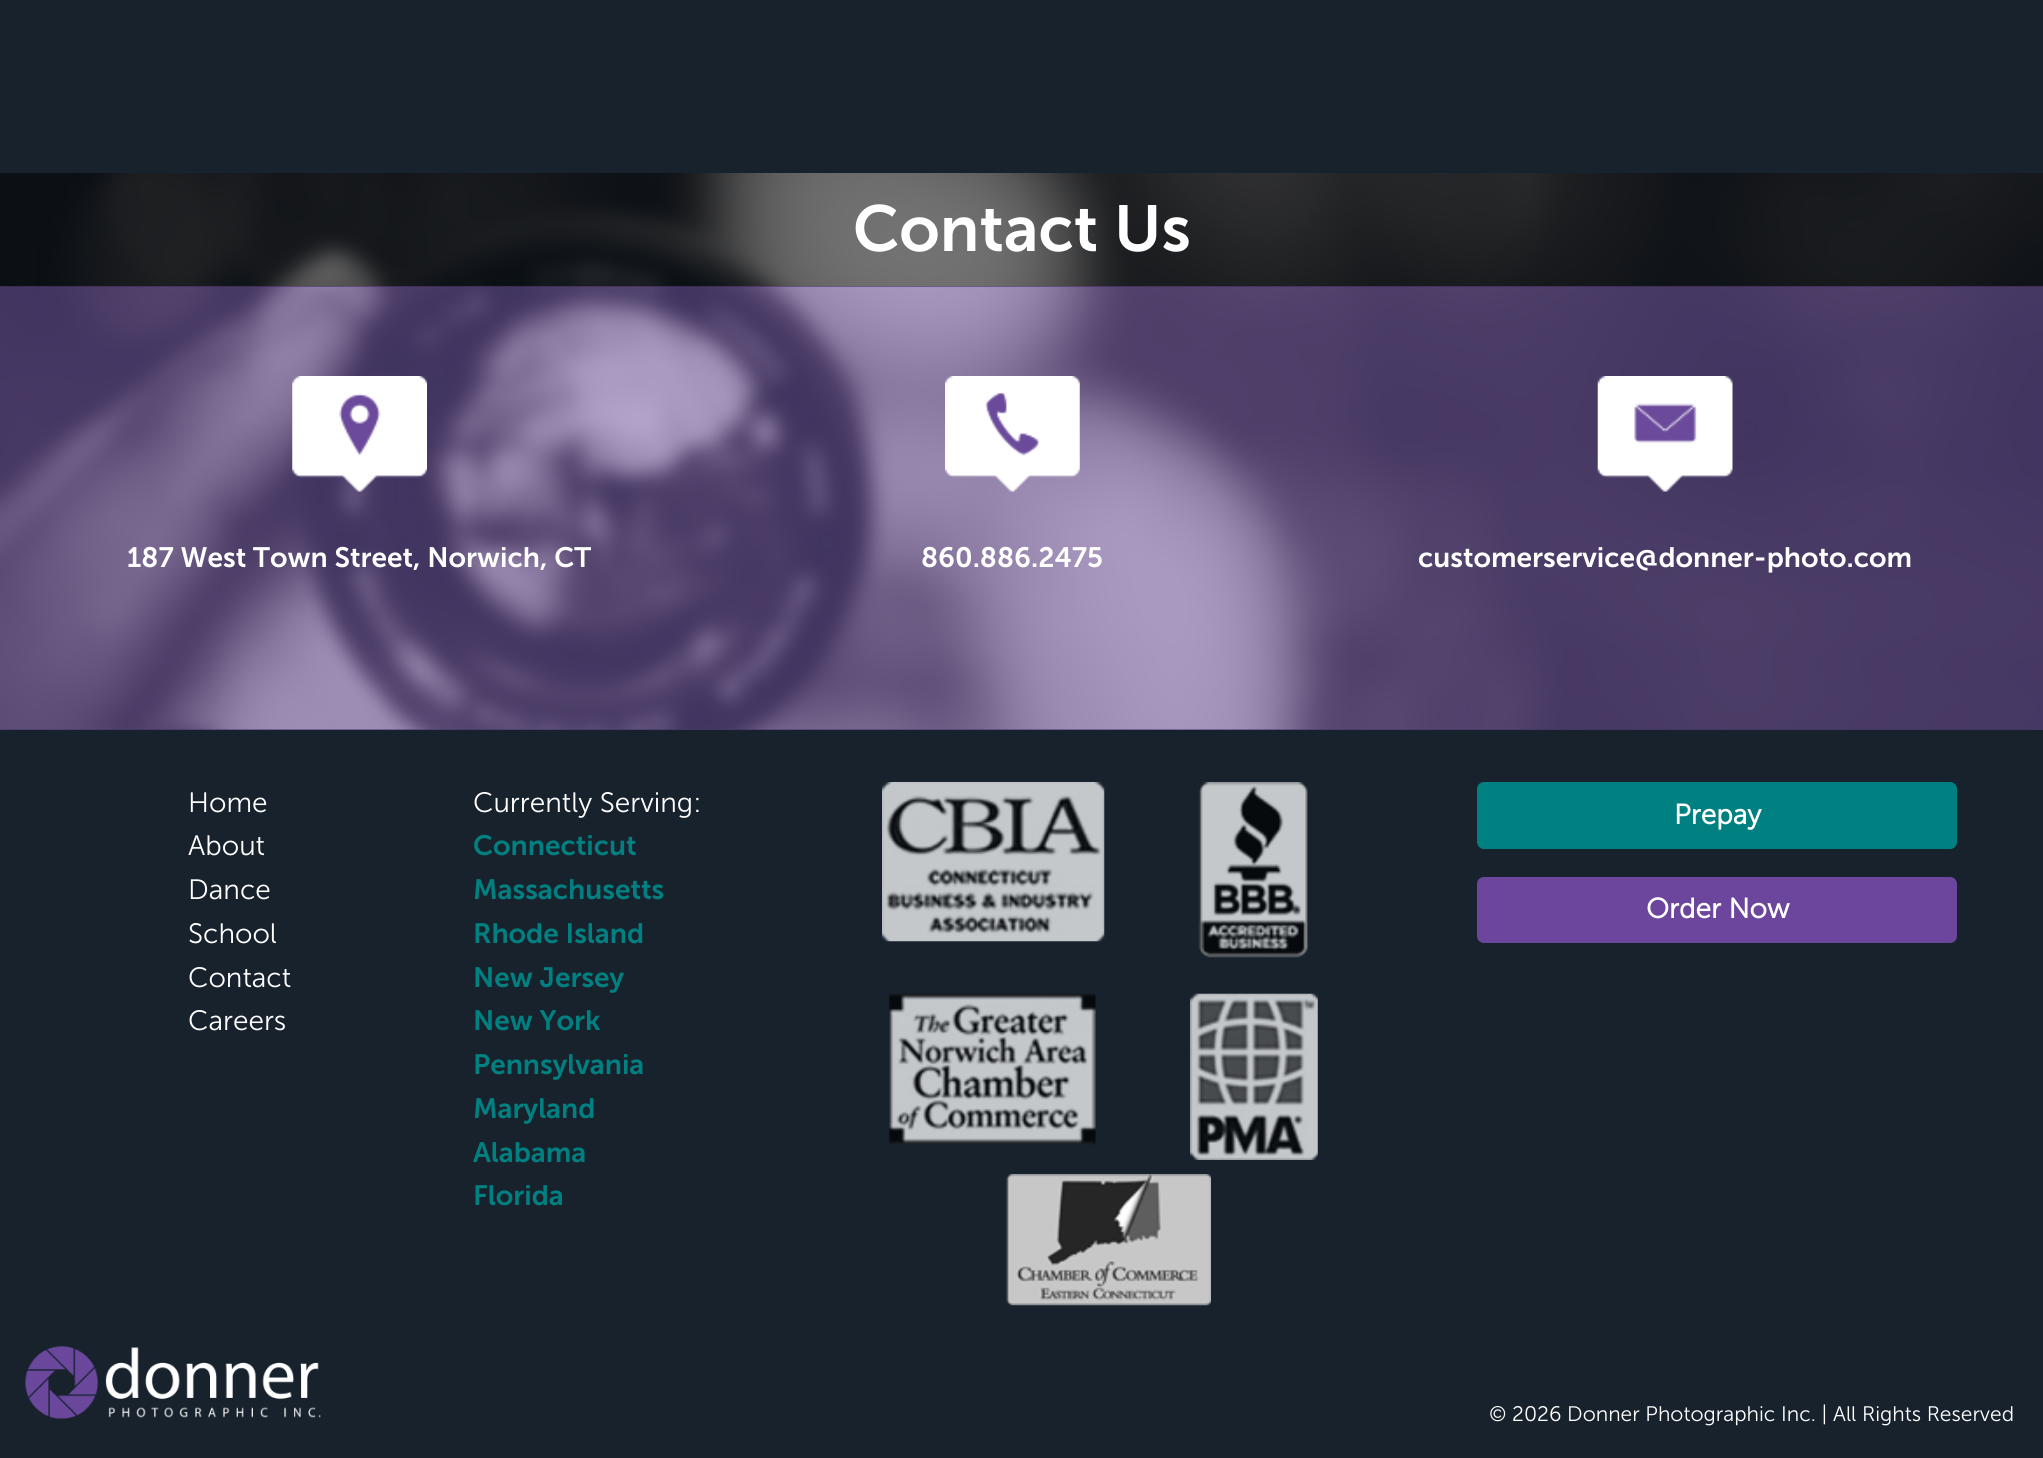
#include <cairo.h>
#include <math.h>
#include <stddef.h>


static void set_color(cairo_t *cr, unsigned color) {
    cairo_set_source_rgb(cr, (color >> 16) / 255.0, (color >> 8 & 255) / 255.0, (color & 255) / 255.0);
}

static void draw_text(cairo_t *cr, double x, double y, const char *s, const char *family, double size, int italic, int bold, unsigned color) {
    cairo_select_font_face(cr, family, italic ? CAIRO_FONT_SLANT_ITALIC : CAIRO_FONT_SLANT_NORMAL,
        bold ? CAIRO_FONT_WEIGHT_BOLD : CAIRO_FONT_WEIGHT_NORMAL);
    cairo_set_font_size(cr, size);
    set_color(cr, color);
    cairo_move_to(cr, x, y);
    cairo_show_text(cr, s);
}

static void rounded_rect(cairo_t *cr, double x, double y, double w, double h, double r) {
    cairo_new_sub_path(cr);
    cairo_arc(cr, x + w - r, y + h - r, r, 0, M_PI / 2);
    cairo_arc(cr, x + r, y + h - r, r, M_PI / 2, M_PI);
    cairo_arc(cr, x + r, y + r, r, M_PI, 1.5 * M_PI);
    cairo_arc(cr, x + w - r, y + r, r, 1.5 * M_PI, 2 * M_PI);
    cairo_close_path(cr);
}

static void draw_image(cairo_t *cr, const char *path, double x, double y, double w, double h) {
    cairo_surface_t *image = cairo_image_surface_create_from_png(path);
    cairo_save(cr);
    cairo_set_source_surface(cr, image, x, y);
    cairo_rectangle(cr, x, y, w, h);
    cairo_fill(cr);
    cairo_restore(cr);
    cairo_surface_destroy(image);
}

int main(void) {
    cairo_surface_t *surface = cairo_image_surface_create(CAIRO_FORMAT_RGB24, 2043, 1458);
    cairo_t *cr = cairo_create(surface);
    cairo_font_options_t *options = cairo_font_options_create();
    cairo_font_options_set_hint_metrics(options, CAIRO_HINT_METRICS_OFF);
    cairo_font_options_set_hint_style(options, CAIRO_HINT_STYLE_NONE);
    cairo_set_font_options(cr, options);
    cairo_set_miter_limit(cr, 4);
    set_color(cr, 0x17222D);
    cairo_paint(cr);
    draw_image(cr, "assets/img1.png", 0, 173, 2043, 557);
    cairo_set_source_rgba(cr, 0, 0, 0, 0.5);
    cairo_rectangle(cr, 0, 173, 2043, 114);
    cairo_fill(cr);
    draw_text(cr, 853, 251, "Contact Us", "Museo Sans SemiBold", 64.75, 0, 0, 0xFFFFFF);
    cairo_set_source_rgba(cr, 0.424, 0.29, 0.6, 0.5);
    cairo_rectangle(cr, 0, 286, 2043, 444);
    cairo_fill(cr);
    draw_image(cr, "assets/img2.png", 292, 376, 135, 116);
    draw_text(cr, 127, 567, "187 West Town Street, Norwich, CT", "Museo Sans SemiBold", 28, 0, 0, 0xFFFFFF);
    draw_image(cr, "assets/img3.png", 945, 376, 135, 116);
    draw_text(cr, 921, 567, "860.886.2475", "Museo Sans SemiBold", 28, 0, 0, 0xFFFFFF);
    draw_image(cr, "assets/img4.png", 1597, 376, 136, 116);
    draw_text(cr, 1418, 567, "customerservice@donner-photo.com", "Museo Sans SemiBold", 28, 0, 0, 0xFFFFFF);
    draw_text(cr, 188, 812, "Home", "Museo Sans Light", 28, 0, 0, 0xFFFFFF);
    draw_text(cr, 188, 855, "About", "Museo Sans Light", 28, 0, 0, 0xFFFFFF);
    draw_text(cr, 188, 899, "Dance", "Museo Sans Light", 28, 0, 0, 0xFFFFFF);
    draw_text(cr, 188, 943, "School", "Museo Sans Light", 28, 0, 0, 0xFFFFFF);
    draw_text(cr, 188, 987, "Contact", "Museo Sans Light", 28, 0, 0, 0xFFFFFF);
    draw_text(cr, 188, 1030, "Careers", "Museo Sans Light", 28, 0, 0, 0xFFFFFF);
    draw_text(cr, 473, 812, "Currently Serving:", "Museo Sans Light", 28, 0, 0, 0xFFFFFF);
    draw_text(cr, 473, 855, "Connecticut", "Museo Sans SemiBold", 28, 0, 0, 0x008080);
    draw_text(cr, 473, 899, "Massachusetts", "Museo Sans SemiBold", 28, 0, 0, 0x008080);
    draw_text(cr, 473, 943, "Rhode Island", "Museo Sans SemiBold", 28, 0, 0, 0x008080);
    draw_text(cr, 473, 987, "New Jersey", "Museo Sans SemiBold", 28, 0, 0, 0x008080);
    draw_text(cr, 473, 1030, "New York", "Museo Sans SemiBold", 28, 0, 0, 0x008080);
    draw_text(cr, 473, 1074, "Pennsylvania", "Museo Sans SemiBold", 28, 0, 0, 0x008080);
    draw_text(cr, 473, 1118, "Maryland", "Museo Sans SemiBold", 28, 0, 0, 0x008080);
    draw_text(cr, 473, 1162, "Alabama", "Museo Sans SemiBold", 28, 0, 0, 0x008080);
    draw_text(cr, 473, 1205, "Florida", "Museo Sans SemiBold", 28, 0, 0, 0x008080);
    draw_image(cr, "assets/img5.png", 882, 782, 223, 160);
    draw_image(cr, "assets/img6.png", 1198, 782, 111, 176);
    draw_image(cr, "assets/img7.png", 889, 993, 207, 152);
    draw_image(cr, "assets/img8.png", 1190, 993, 128, 167);
    draw_image(cr, "assets/img9.png", 1006, 1174, 205, 132);
    rounded_rect(cr, 1478, 783, 478, 65, 6);
    cairo_fill_preserve(cr);
    cairo_stroke(cr);
    draw_text(cr, 1674, 824, "Prepay", "Museo Sans", 28, 0, 1, 0xFFFFFF);
    set_color(cr, 0x6B469C);
    rounded_rect(cr, 1478, 878, 478, 64, 6);
    cairo_fill_preserve(cr);
    cairo_stroke(cr);
    draw_text(cr, 1646, 918, "Order Now", "Museo Sans", 28, 0, 1, 0xFFFFFF);
    draw_image(cr, "assets/img10.png", 25, 1346, 296, 73);
    draw_text(cr, 1489, 1421, "© 2026 Donner Photographic Inc. | All Rights Reserved", "Museo Sans Light", 21, 0, 0, 0xFFFFFF);
    cairo_surface_write_to_png(surface, "output.png");
    cairo_font_options_destroy(options);
    cairo_destroy(cr);
    cairo_surface_destroy(surface);
    return 0;
}
